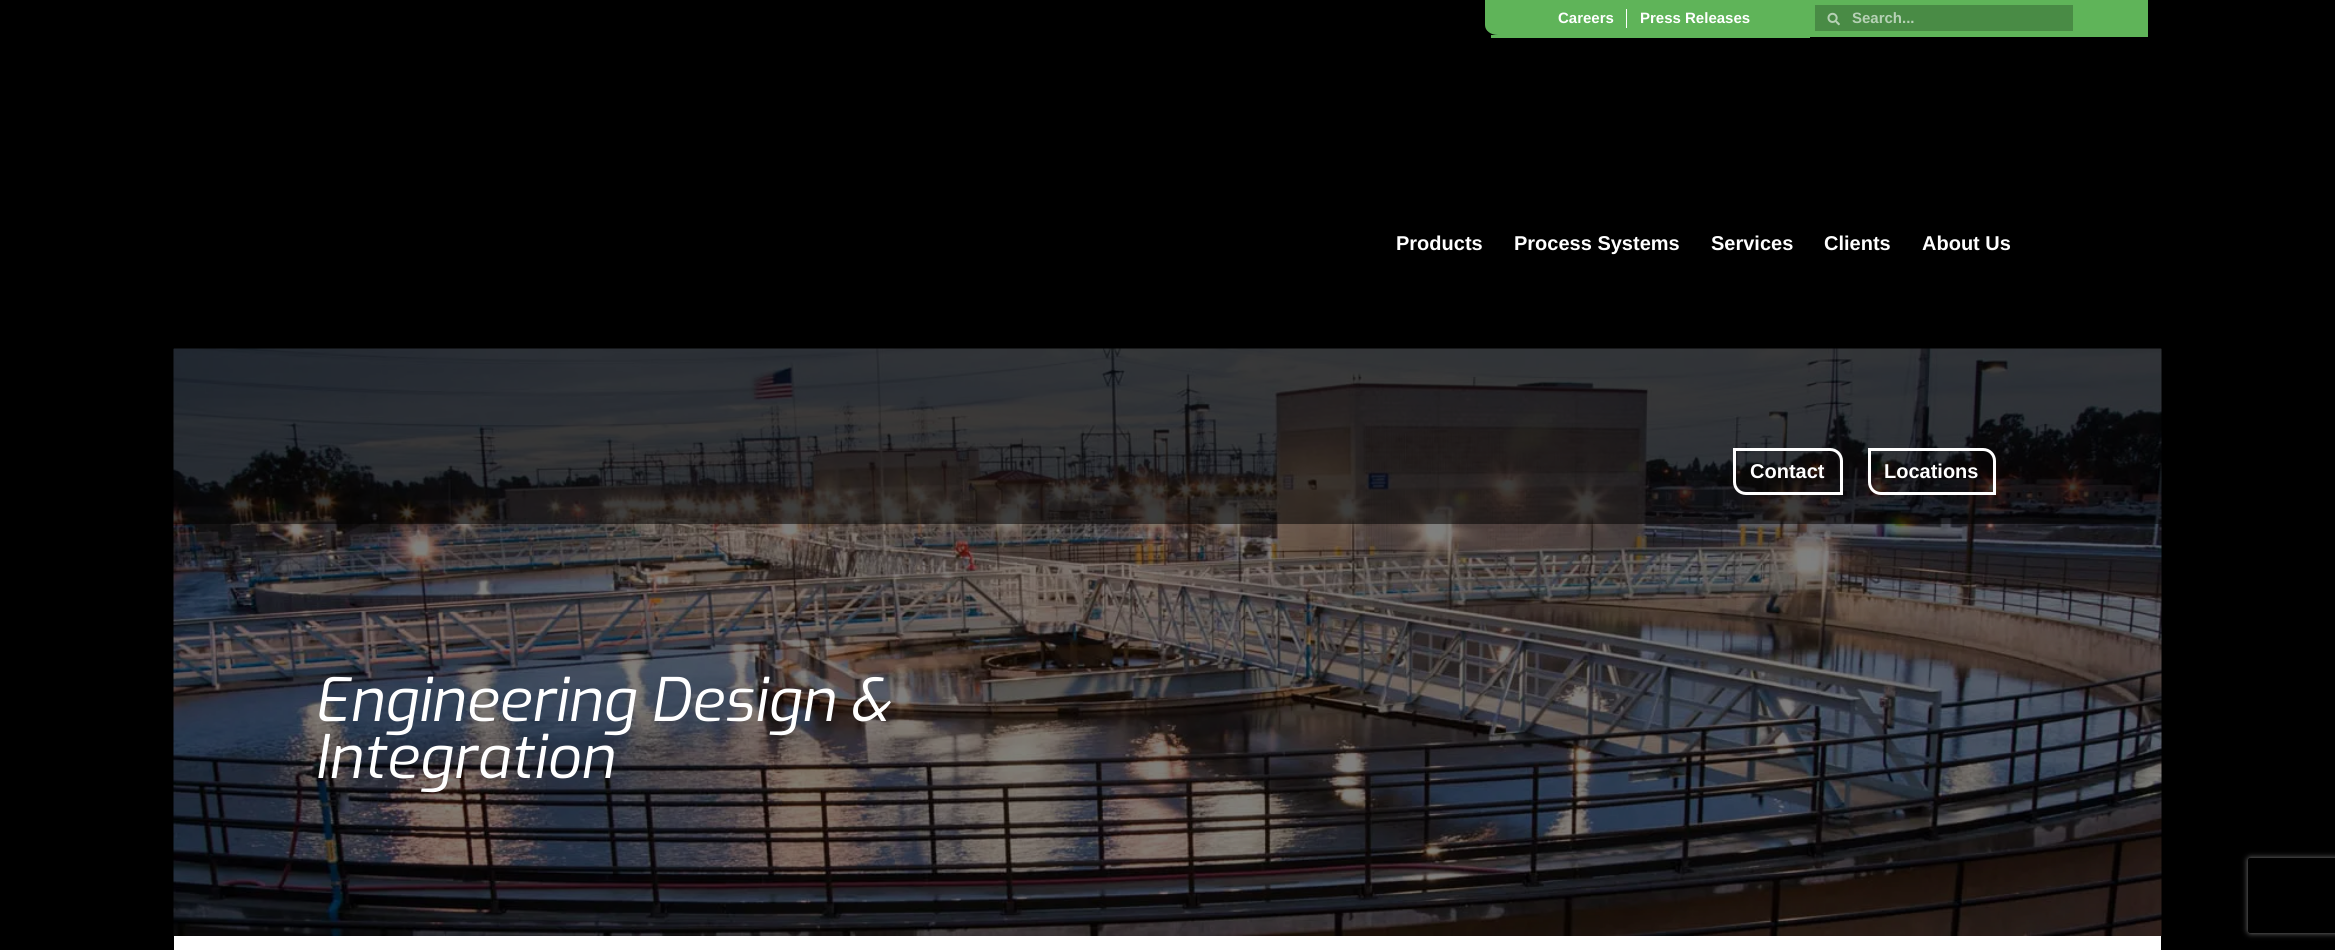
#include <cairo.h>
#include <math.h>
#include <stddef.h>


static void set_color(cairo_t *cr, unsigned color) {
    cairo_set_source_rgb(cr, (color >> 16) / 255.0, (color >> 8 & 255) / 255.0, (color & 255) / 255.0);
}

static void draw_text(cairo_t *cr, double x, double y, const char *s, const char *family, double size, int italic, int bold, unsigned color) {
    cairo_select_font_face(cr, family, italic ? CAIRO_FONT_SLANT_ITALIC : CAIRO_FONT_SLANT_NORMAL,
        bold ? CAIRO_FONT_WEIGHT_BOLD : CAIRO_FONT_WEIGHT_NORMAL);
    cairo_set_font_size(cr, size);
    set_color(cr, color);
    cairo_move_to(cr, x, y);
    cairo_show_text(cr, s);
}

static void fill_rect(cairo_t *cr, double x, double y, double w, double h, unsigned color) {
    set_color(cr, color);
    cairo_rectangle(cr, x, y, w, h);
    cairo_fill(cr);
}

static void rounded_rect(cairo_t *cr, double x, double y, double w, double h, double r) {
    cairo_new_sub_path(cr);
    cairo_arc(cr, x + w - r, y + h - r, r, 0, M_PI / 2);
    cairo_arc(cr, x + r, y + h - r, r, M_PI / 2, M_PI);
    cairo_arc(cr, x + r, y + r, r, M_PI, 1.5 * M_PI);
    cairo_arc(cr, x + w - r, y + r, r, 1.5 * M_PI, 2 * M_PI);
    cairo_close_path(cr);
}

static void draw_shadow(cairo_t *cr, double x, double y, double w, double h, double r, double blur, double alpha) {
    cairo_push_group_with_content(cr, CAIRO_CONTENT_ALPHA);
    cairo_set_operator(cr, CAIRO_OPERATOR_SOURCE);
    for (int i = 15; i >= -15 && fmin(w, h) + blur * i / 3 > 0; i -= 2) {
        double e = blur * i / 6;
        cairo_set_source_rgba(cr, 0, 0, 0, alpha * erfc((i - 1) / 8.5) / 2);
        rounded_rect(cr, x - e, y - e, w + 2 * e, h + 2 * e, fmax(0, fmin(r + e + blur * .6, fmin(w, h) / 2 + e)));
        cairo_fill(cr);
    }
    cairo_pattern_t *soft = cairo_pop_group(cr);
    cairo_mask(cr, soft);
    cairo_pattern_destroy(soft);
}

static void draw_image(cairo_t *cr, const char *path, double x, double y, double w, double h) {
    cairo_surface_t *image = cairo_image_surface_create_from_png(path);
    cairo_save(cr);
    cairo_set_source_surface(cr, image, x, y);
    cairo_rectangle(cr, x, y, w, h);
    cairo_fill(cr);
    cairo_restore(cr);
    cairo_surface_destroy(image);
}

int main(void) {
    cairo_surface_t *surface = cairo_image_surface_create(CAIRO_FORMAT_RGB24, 2335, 950);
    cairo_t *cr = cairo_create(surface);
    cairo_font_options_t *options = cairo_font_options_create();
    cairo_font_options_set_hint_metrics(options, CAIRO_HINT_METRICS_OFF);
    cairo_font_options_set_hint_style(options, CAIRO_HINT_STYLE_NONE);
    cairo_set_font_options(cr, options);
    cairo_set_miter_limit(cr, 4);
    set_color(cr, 0x000000);
    cairo_paint(cr);
    draw_image(cr, "assets/img2.png", 173, 348, 1989, 589);
    cairo_set_source_rgba(cr, 0, 0, 0, 0.52);
    cairo_rectangle(cr, 173, 348, 1989, 176);
    cairo_fill(cr);
    set_color(cr, 0x5FB459);
    cairo_new_path(cr);
    cairo_move_to(cr, 1485, 0);
    cairo_line_to(cr, 1810, 0);
    cairo_line_to(cr, 1810, 35);
    cairo_line_to(cr, 1498, 35);
    cairo_curve_to(cr, 1491, 35, 1485, 31, 1485, 25);
    cairo_close_path(cr);
    cairo_fill(cr);
    fill_rect(cr, 1491, 35, 319, 3, 0x5FB459);
    draw_text(cr, 1558, 23, "Careers", "Liberation Sans", 15, 0, 1, 0xFFFFFF);
    fill_rect(cr, 1626, 9, 1, 19, 0xFFFFFF);
    draw_text(cr, 1640, 23, "Press Releases", "Liberation Sans", 15, 0, 1, 0xFFFFFF);
    fill_rect(cr, 1810, 31, 338, 6, 0x5FB459);
    fill_rect(cr, 1815, 5, 258, 26, 0x498B45);
    fill_rect(cr, 1810, 0, 263, 5, 0x5FB459);
    fill_rect(cr, 2073, 0, 75, 31, 0x5FB459);
    fill_rect(cr, 1810, 0, 5, 36, 0x5FB459);
    draw_image(cr, "assets/img1.png", 1827, 12, 13, 14);
    draw_text(cr, 1852, 23, "Search...", "Liberation Sans", 15, 0, 1, 0xB6D1B5);
    draw_text(cr, 1396, 250, "Products", "Liberation Sans", 20, 0, 1, 0xFFFFFF);
    draw_text(cr, 1514, 250, "Process Systems", "Liberation Sans", 20, 0, 1, 0xFFFFFF);
    draw_text(cr, 1711, 250, "Services", "Liberation Sans", 20, 0, 1, 0xFFFFFF);
    draw_text(cr, 1824, 250, "Clients", "Liberation Sans", 20, 0, 1, 0xFFFFFF);
    draw_text(cr, 1922, 250, "About Us", "Liberation Sans", 20, 0, 1, 0xFFFFFF);
    cairo_new_path(cr);
    cairo_move_to(cr, 1734.5, 449.5);
    cairo_line_to(cr, 1830, 449.5);
    cairo_curve_to(cr, 1836.5, 449.5, 1841.5, 454.5, 1841.5, 461);
    cairo_line_to(cr, 1841.5, 493.5);
    cairo_line_to(cr, 1746, 493.5);
    cairo_curve_to(cr, 1739.5, 493.5, 1734.5, 488.5, 1734.5, 482);
    cairo_close_path(cr);
    cairo_set_line_width(cr, 3);
    cairo_stroke(cr);
    draw_text(cr, 1750, 478, "Contact", "Liberation Sans", 20, 0, 1, 0xFFFFFF);
    cairo_new_path(cr);
    cairo_move_to(cr, 1869.5, 449.5);
    cairo_line_to(cr, 1983, 449.5);
    cairo_curve_to(cr, 1989.5, 449.5, 1994.5, 454.5, 1994.5, 461);
    cairo_line_to(cr, 1994.5, 493.5);
    cairo_line_to(cr, 1881, 493.5);
    cairo_curve_to(cr, 1874.5, 493.5, 1869.5, 488.5, 1869.5, 482);
    cairo_close_path(cr);
    cairo_stroke(cr);
    draw_text(cr, 1884, 478, "Locations", "Liberation Sans", 20, 0, 1, 0xFFFFFF);
    draw_text(cr, 314, 721, "Engineering Design &", "Exo", 60, 1, 0, 0xFFFFFF);
    draw_text(cr, 314, 778, "Integration", "Exo", 60, 1, 0, 0xFFFFFF);
    fill_rect(cr, 174, 936, 1987, 14, 0xFFFFFF);
    cairo_save(cr);
    cairo_set_fill_rule(cr, CAIRO_FILL_RULE_EVEN_ODD);
    cairo_new_path(cr);
    cairo_move_to(cr, 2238, 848);
    cairo_line_to(cr, 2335, 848);
    cairo_line_to(cr, 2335, 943);
    cairo_line_to(cr, 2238, 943);
    cairo_close_path(cr);
    cairo_move_to(cr, 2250.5, 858);
    cairo_line_to(cr, 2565.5, 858);
    cairo_curve_to(cr, 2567, 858, 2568, 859, 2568, 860.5);
    cairo_line_to(cr, 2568, 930.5);
    cairo_curve_to(cr, 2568, 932, 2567, 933, 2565.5, 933);
    cairo_line_to(cr, 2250.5, 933);
    cairo_curve_to(cr, 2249, 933, 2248, 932, 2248, 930.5);
    cairo_line_to(cr, 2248, 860.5);
    cairo_curve_to(cr, 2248, 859, 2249, 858, 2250.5, 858);
    cairo_close_path(cr);
    cairo_clip(cr);
    set_color(cr, 0x808080);
    draw_shadow(cr, 2248, 858, 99, 75, 2.5, 3, 1);
    cairo_restore(cr);
    cairo_surface_write_to_png(surface, "output.png");
    cairo_font_options_destroy(options);
    cairo_destroy(cr);
    cairo_surface_destroy(surface);
    return 0;
}
